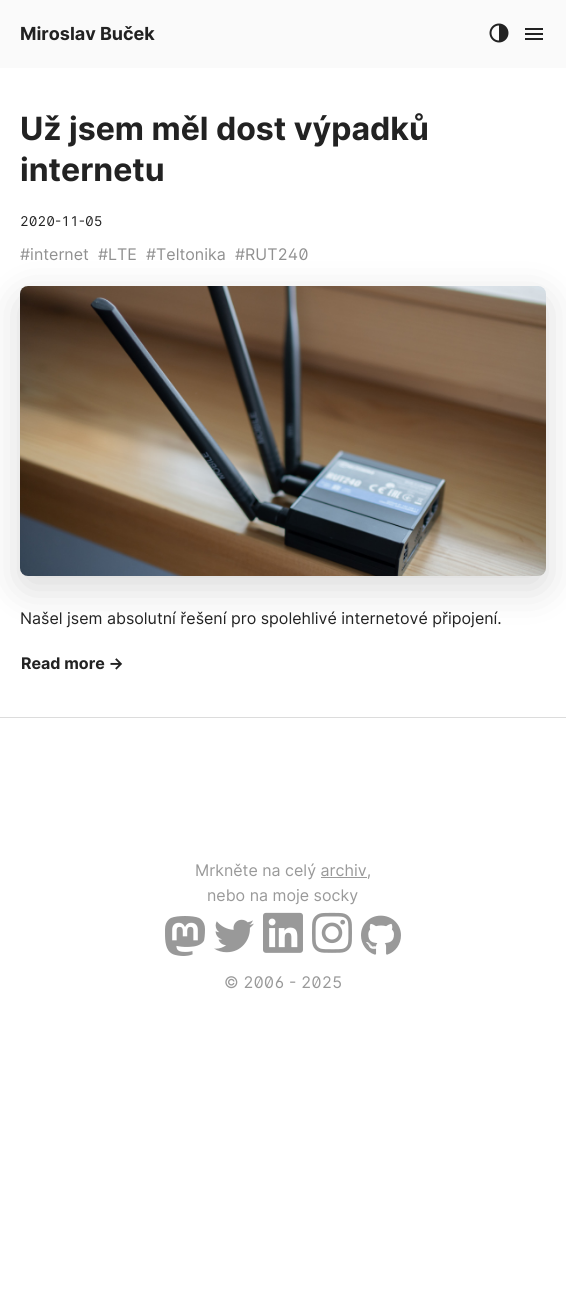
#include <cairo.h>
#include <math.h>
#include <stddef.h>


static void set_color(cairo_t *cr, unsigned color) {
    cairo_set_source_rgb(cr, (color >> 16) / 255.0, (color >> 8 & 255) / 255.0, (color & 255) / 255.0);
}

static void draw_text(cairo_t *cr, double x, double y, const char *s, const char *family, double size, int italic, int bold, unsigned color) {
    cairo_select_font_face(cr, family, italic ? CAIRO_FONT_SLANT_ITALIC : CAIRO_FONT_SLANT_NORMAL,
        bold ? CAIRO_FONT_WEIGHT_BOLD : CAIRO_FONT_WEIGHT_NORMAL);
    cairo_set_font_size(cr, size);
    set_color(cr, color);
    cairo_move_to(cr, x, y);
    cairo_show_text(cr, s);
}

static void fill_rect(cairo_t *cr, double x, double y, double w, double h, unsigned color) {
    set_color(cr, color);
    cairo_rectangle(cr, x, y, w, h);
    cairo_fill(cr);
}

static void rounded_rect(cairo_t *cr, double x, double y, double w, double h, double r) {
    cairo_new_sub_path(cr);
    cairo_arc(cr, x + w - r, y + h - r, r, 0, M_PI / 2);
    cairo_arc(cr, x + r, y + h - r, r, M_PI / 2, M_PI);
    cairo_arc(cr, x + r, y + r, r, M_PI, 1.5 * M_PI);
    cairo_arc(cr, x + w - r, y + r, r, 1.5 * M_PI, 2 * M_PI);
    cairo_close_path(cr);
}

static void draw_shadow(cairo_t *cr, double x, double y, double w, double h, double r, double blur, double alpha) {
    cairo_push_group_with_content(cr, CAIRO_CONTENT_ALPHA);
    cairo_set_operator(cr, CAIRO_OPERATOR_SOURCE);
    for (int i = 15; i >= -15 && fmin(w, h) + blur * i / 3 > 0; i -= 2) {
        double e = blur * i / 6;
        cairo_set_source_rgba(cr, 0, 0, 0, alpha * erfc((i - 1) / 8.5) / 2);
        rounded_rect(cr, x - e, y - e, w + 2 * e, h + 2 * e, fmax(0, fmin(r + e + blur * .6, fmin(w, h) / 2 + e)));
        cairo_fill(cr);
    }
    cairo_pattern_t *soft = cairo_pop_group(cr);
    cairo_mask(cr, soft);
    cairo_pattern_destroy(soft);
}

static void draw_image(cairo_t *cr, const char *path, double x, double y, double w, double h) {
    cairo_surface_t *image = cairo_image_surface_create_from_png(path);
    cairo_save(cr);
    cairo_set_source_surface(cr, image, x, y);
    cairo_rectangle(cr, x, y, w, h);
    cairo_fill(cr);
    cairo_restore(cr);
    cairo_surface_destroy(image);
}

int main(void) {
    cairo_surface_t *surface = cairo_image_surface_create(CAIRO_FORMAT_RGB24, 566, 1300);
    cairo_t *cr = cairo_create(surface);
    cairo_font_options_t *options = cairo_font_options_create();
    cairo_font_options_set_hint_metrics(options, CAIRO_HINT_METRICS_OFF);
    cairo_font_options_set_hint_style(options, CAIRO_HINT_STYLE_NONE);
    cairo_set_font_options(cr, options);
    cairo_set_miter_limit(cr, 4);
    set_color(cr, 0xFFFFFF);
    cairo_paint(cr);
    fill_rect(cr, 0, 0, 566, 68, 0xFAFAFA);
    draw_text(cr, 20, 40, "Miroslav Buček", "Inter", 18, 0, 1, 0x222222);
    draw_image(cr, "assets/img1.png", 489, 23, 20, 20);
    draw_image(cr, "assets/img2.png", 525, 28, 18, 12);
    fill_rect(cr, 0, 717, 566, 1, 0xDCDCDC);
    draw_text(cr, 20, 140, "Už jsem měl dost výpadků", "Inter", 32, 0, 1, 0x222222);
    draw_text(cr, 20, 181, "internetu", "Inter", 32, 0, 1, 0x222222);
    draw_text(cr, 20, 226, "2020-11-05", "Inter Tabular", 13.5, 0, 0, 0x222222);
    set_color(cr, 0x000000);
    draw_shadow(cr, 20, 298, 526, 290, 8, 20, 0.15);
    draw_image(cr, "assets/img3.png", 20, 286, 526, 290);
    draw_text(cr, 20, 260, "#internet", "Inter", 16, 0, 0, 0x909090);
    draw_text(cr, 98, 260, "#LTE", "Inter", 16, 0, 0, 0x909090);
    draw_text(cr, 146, 260, "#Teltonika", "Inter", 16, 0, 0, 0x909090);
    draw_text(cr, 235, 260, "#RUT240", "Inter Tabular", 16, 0, 0, 0x909090);
    draw_text(cr, 20, 624, "Našel jsem absolutní řešení pro spolehlivé internetové připojení.", "Inter", 16, 0, 0, 0x222222);
    draw_text(cr, 21, 669, "Read more →", "Inter", 16, 0, 1, 0x222222);
    draw_text(cr, 195, 876, "Mrkněte na celý archiv,", "Inter", 16, 0, 0, 0x999999);
    fill_rect(cr, 321, 877, 46, 1, 0x999999);
    draw_text(cr, 207, 901, "nebo na moje socky", "Inter", 16, 0, 0, 0x999999);
    draw_image(cr, "assets/img4.png", 165, 916, 40, 40);
    draw_image(cr, "assets/img5.png", 214, 919, 40, 34);
    draw_image(cr, "assets/img6.png", 263, 912, 40, 41);
    draw_image(cr, "assets/img7.png", 312, 912, 40, 41);
    draw_image(cr, "assets/img8.png", 361, 915, 40, 40);
    draw_text(cr, 224, 988, "© 2006 - 2025", "Inter Tabular", 16, 0, 0, 0x999999);
    cairo_surface_write_to_png(surface, "output.png");
    cairo_font_options_destroy(options);
    cairo_destroy(cr);
    cairo_surface_destroy(surface);
    return 0;
}
